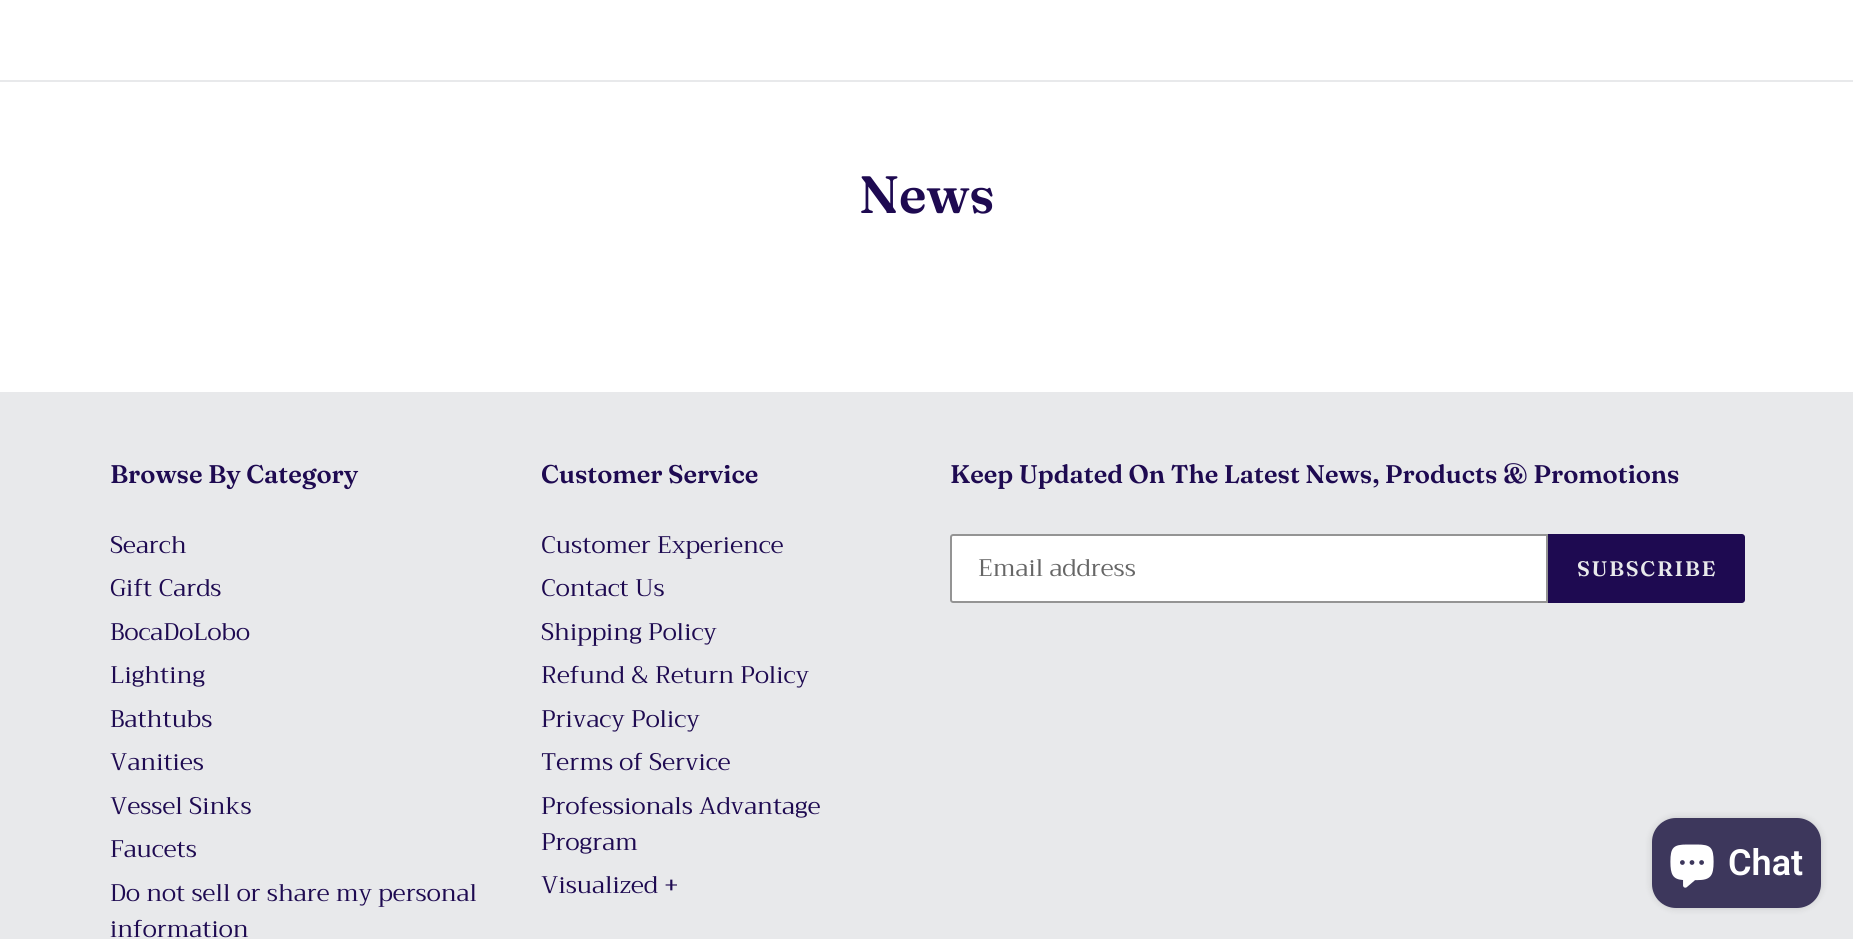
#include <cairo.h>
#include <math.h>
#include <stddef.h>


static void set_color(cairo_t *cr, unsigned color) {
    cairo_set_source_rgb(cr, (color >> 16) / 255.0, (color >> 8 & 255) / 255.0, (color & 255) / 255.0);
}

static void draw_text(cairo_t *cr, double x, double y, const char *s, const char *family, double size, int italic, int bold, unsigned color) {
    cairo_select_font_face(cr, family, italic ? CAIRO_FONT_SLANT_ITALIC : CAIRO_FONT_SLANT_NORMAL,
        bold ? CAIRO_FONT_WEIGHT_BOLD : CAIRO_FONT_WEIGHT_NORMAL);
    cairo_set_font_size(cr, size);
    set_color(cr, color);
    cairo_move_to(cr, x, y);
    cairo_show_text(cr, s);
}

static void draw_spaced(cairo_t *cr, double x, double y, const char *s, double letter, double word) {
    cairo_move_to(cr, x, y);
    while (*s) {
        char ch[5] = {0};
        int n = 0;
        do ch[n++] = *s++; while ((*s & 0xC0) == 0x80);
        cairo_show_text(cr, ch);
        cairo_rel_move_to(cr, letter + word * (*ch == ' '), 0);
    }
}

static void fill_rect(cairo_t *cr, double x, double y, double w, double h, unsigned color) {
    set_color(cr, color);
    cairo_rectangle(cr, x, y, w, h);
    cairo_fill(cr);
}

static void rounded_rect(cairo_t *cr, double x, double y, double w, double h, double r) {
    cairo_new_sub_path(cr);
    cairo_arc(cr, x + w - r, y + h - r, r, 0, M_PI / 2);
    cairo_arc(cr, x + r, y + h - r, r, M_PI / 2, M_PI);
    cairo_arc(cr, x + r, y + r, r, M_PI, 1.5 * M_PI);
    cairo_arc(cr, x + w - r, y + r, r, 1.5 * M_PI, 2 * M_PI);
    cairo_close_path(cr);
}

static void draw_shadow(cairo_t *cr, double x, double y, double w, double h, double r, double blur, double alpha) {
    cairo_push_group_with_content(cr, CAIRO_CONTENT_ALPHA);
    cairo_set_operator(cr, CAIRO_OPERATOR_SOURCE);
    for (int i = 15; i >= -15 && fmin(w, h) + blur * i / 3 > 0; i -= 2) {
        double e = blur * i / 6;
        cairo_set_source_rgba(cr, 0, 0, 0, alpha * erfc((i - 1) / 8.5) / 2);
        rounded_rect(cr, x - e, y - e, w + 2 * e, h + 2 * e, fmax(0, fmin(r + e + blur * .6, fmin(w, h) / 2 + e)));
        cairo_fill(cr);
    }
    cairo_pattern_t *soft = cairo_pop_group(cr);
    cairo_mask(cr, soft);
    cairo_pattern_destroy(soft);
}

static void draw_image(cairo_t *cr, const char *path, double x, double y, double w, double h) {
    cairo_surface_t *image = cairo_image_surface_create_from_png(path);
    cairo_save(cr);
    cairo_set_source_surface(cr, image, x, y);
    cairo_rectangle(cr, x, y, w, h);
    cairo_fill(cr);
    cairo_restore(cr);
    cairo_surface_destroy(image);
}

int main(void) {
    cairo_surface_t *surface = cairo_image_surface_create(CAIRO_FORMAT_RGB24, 1853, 939);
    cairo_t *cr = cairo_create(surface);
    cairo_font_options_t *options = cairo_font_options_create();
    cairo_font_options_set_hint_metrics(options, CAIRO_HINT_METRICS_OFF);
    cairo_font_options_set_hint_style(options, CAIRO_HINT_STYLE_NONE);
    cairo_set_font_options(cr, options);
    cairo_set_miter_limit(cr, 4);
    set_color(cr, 0xFFFFFF);
    cairo_paint(cr);
    fill_rect(cr, 0, 80, 1853, 2, 0xE8E9EB);
    draw_text(cr, 859, 213, "News", "Fraunces SemiBold", 52.5, 0, 0, 0x1E0A51);
    fill_rect(cr, 0, 392, 1853, 547, 0xE8E9EB);
    draw_text(cr, 110, 483, "Browse By Category", "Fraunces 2 SemiBold", 25.5, 0, 0, 0x1E0A51);
    draw_text(cr, 110, 553, "Search", "Trirong", 24, 0, 0, 0x1E0A51);
    draw_text(cr, 110, 596, "Gift Cards", "Trirong", 24, 0, 0, 0x1E0A51);
    draw_text(cr, 110, 640, "BocaDoLobo", "Trirong", 24, 0, 0, 0x1E0A51);
    draw_text(cr, 110, 683, "Lighting", "Trirong", 24, 0, 0, 0x1E0A51);
    draw_text(cr, 110, 727, "Bathtubs", "Trirong", 24, 0, 0, 0x1E0A51);
    draw_text(cr, 110, 770, "Vanities", "Trirong", 24, 0, 0, 0x1E0A51);
    draw_text(cr, 110, 814, "Vessel Sinks", "Trirong", 24, 0, 0, 0x1E0A51);
    draw_text(cr, 110, 857, "Faucets", "Trirong", 24, 0, 0, 0x1E0A51);
    draw_text(cr, 110, 901, "Do not sell or share my personal", "Trirong", 24, 0, 0, 0x1E0A51);
    draw_text(cr, 110, 937, "information", "Trirong", 24, 0, 0, 0x1E0A51);
    draw_text(cr, 541, 483, "Customer Service", "Fraunces 2 SemiBold", 25.5, 0, 0, 0x1E0A51);
    draw_text(cr, 541, 553, "Customer Experience", "Trirong", 24, 0, 0, 0x1E0A51);
    draw_text(cr, 541, 596, "Contact Us", "Trirong", 24, 0, 0, 0x1E0A51);
    draw_text(cr, 541, 640, "Shipping Policy", "Trirong", 24, 0, 0, 0x1E0A51);
    draw_text(cr, 541, 683, "Refund & Return Policy", "Trirong", 24, 0, 0, 0x1E0A51);
    draw_text(cr, 541, 727, "Privacy Policy", "Trirong", 24, 0, 0, 0x1E0A51);
    draw_text(cr, 541, 770, "Terms of Service", "Trirong", 24, 0, 0, 0x1E0A51);
    draw_text(cr, 541, 814, "Professionals Advantage", "Trirong", 24, 0, 0, 0x1E0A51);
    draw_text(cr, 541, 850, "Program", "Trirong", 24, 0, 0, 0x1E0A51);
    draw_text(cr, 541, 893, "Visualized +", "Trirong", 24, 0, 0, 0x1E0A51);
    draw_text(cr, 950, 483, "Keep Updated On The Latest News, Products & Promotions", "Fraunces 2 SemiBold", 25.5, 0, 0, 0x1E0A51);
    set_color(cr, 0xFFFFFF);
    cairo_new_path(cr);
    cairo_move_to(cr, 953, 535);
    cairo_line_to(cr, 1547, 535);
    cairo_line_to(cr, 1547, 602);
    cairo_line_to(cr, 953, 602);
    cairo_curve_to(cr, 952, 602, 951, 601, 951, 600);
    cairo_line_to(cr, 951, 537);
    cairo_curve_to(cr, 951, 536, 952, 535, 953, 535);
    cairo_close_path(cr);
    cairo_fill_preserve(cr);
    set_color(cr, 0x949494);
    cairo_stroke(cr);
    draw_text(cr, 978, 576, "Email address", "Trirong", 24, 0, 0, 0x666666);
    set_color(cr, 0x1E0A51);
    cairo_new_path(cr);
    cairo_move_to(cr, 1548, 534);
    cairo_line_to(cr, 1742, 534);
    cairo_curve_to(cr, 1743.5, 534, 1745, 535.5, 1745, 537);
    cairo_line_to(cr, 1745, 600);
    cairo_curve_to(cr, 1745, 601.5, 1743.5, 603, 1742, 603);
    cairo_line_to(cr, 1548, 603);
    cairo_close_path(cr);
    cairo_fill(cr);
    cairo_select_font_face(cr, "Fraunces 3 SemiBold", CAIRO_FONT_SLANT_NORMAL, CAIRO_FONT_WEIGHT_NORMAL);
    cairo_set_font_size(cr, 21);
    set_color(cr, 0xE8E9EB);
    draw_spaced(cr, 1577, 576, "SUBSCRIBE", 1.75, 0);
    set_color(cr, 0x000000);
    draw_shadow(cr, 1652, 818, 169, 90, 24, 4, 0.15);
    set_color(cr, 0x3D375C);
    rounded_rect(cr, 1652, 818, 169, 90, 24);
    cairo_fill(cr);
    draw_image(cr, "assets/img1.png", 1670, 844, 44, 44);
    draw_text(cr, 1728, 875, "Chat", "Roboto SemiBold", 36, 0, 0, 0xFFFFFF);
    cairo_surface_write_to_png(surface, "output.png");
    cairo_font_options_destroy(options);
    cairo_destroy(cr);
    cairo_surface_destroy(surface);
    return 0;
}
